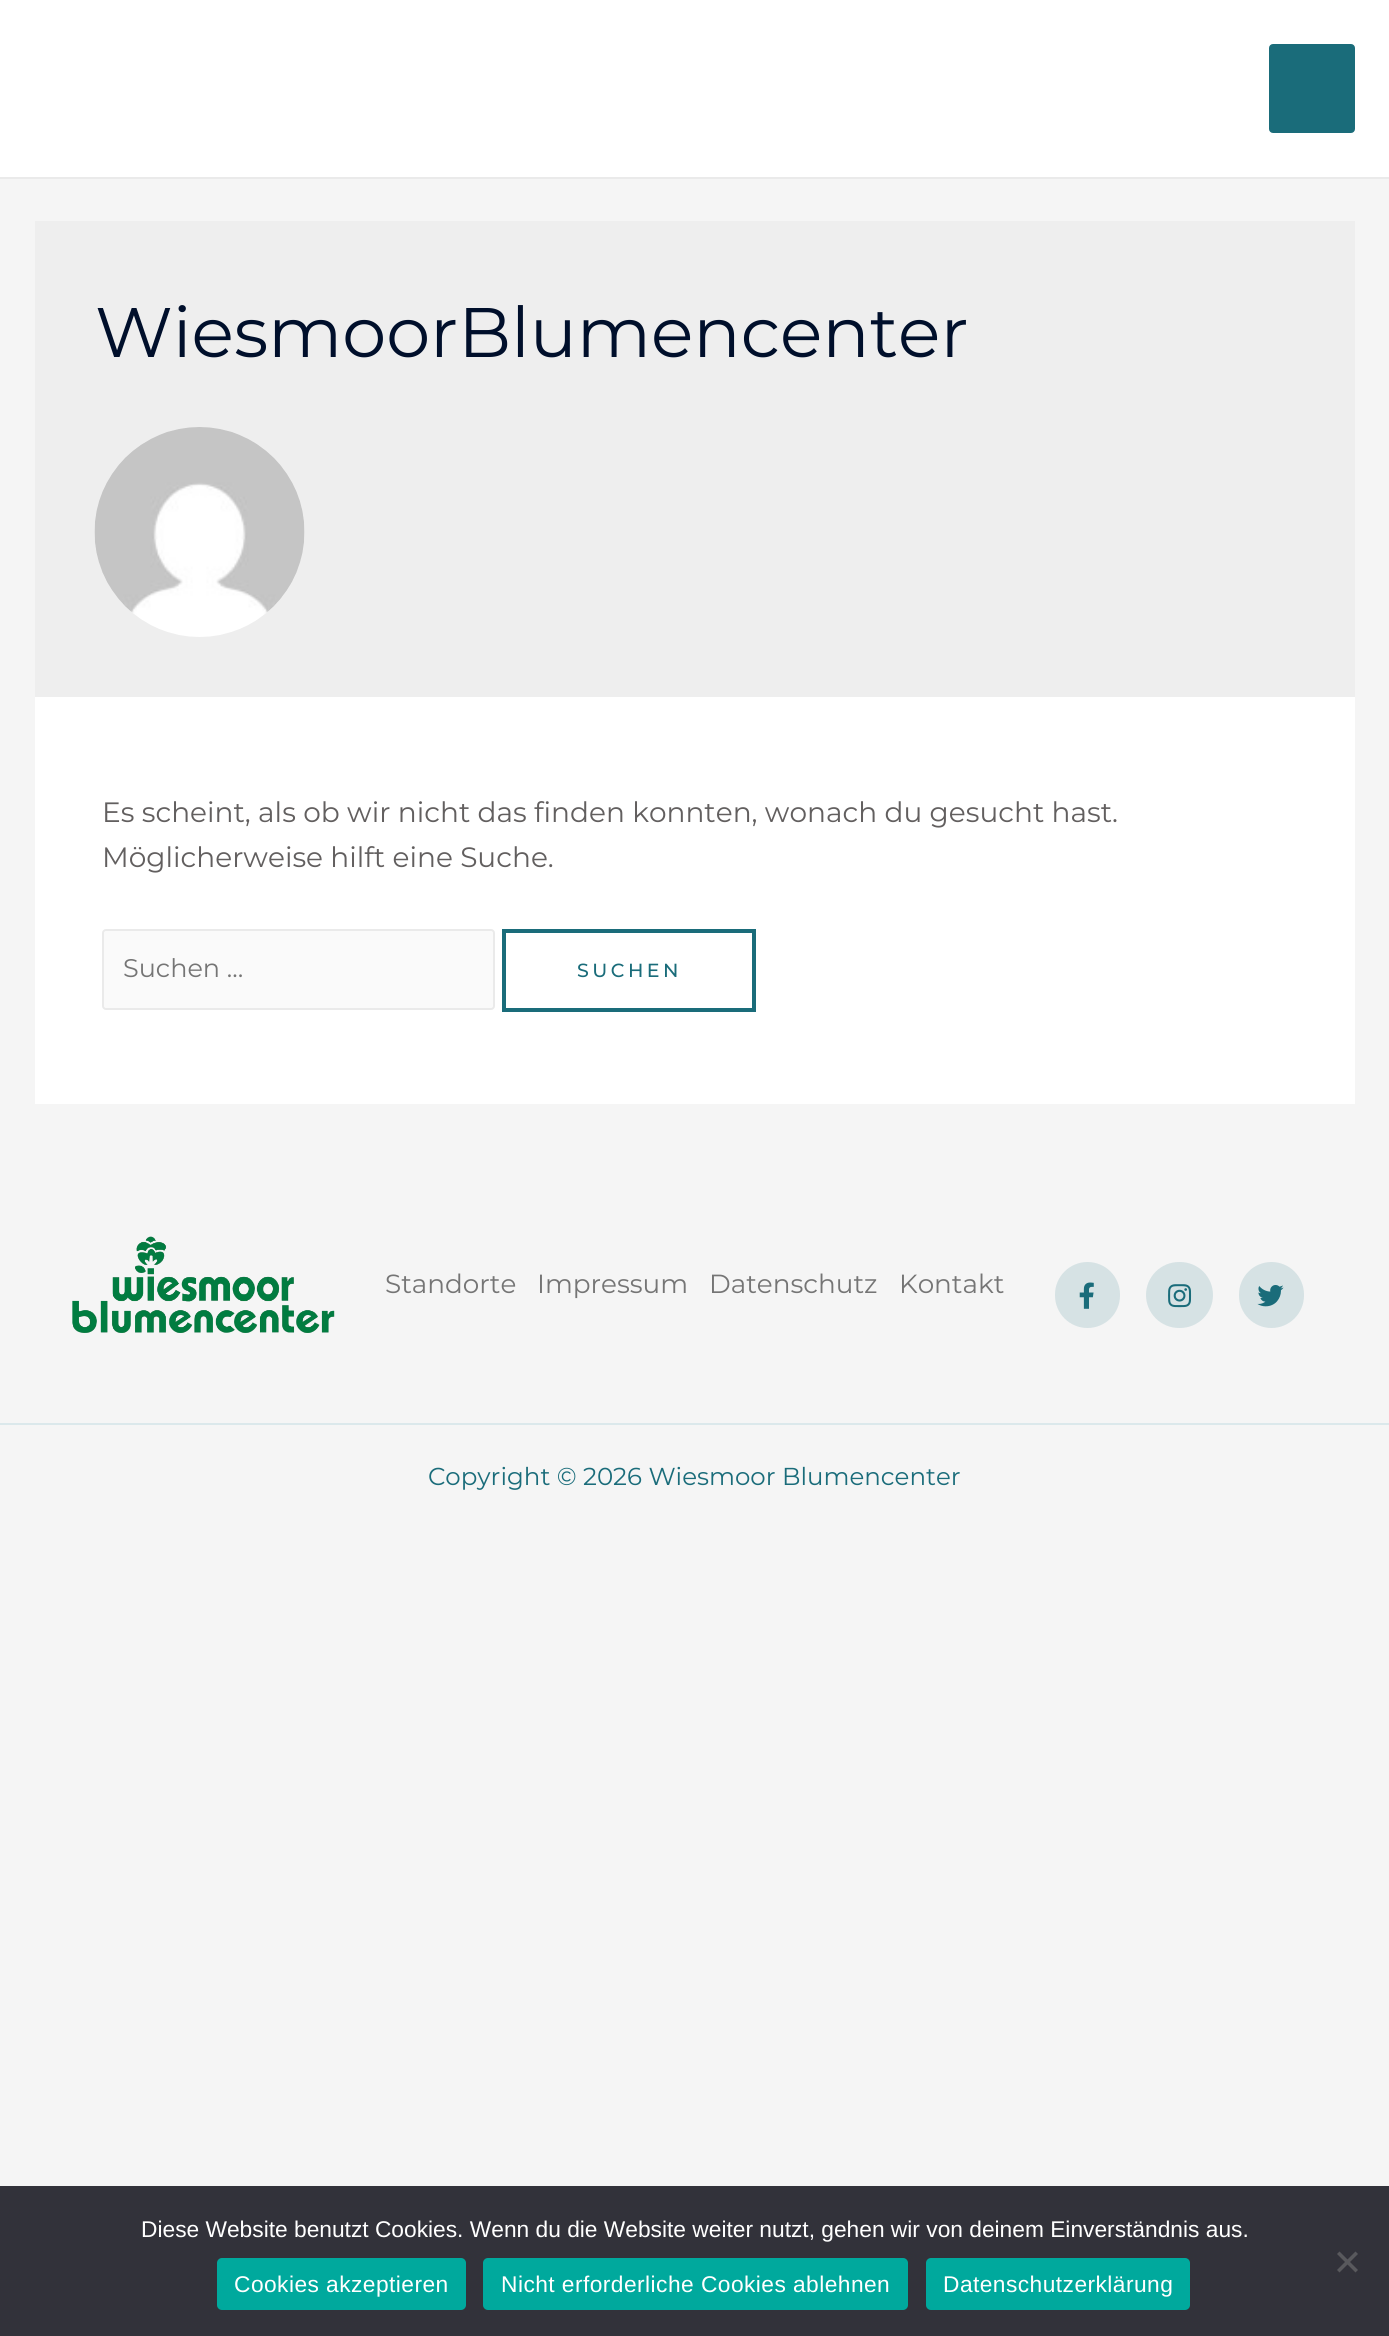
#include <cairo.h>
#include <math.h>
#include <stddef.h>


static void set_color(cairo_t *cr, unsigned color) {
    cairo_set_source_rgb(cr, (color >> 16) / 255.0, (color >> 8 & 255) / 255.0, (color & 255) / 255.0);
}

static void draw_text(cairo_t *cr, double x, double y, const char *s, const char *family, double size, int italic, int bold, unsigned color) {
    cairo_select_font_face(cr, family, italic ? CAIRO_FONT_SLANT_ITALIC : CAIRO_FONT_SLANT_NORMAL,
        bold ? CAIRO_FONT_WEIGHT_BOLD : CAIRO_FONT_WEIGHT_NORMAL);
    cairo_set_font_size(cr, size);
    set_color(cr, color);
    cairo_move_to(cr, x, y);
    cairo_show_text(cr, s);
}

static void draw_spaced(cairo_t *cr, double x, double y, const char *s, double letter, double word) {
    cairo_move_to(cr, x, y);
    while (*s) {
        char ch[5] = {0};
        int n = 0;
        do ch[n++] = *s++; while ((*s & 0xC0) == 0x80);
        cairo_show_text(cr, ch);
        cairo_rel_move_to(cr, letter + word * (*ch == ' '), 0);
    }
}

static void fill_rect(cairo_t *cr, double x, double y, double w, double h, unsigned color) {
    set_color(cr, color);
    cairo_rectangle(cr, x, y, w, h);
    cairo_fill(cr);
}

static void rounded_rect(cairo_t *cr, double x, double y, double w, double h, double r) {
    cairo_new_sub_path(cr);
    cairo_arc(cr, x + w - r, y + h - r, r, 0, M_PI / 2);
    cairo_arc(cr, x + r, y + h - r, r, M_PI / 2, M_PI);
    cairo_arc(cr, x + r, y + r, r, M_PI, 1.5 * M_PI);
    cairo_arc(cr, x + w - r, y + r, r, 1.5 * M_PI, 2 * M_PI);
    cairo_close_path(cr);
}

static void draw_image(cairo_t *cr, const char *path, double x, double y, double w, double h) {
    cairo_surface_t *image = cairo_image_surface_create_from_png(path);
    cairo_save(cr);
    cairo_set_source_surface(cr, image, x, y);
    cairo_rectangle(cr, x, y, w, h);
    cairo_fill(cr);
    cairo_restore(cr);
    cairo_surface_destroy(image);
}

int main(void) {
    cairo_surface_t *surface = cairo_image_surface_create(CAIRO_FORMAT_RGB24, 1389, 2336);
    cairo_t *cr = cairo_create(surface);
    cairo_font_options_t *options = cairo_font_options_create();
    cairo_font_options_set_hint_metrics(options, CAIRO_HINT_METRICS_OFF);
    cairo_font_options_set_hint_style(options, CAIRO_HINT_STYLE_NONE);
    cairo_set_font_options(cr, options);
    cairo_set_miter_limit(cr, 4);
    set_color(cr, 0xF5F5F5);
    cairo_paint(cr);
    fill_rect(cr, 0, 0, 1389, 177, 0xFFFFFF);
    fill_rect(cr, 0, 177, 1389, 2, 0xEAEAEA);
    set_color(cr, 0x1A6C7A);
    rounded_rect(cr, 1271, 46, 82, 85, 2);
    cairo_fill_preserve(cr);
    cairo_set_line_width(cr, 4);
    cairo_stroke(cr);
    fill_rect(cr, 35, 221, 1320, 476, 0xEEEEEE);
    draw_text(cr, 95, 357, "WiesmoorBlumencenter", "Montserrat", 70, 0, 0, 0x000F2B);
    draw_image(cr, "assets/img1.png", 94, 427, 211, 210);
    fill_rect(cr, 35, 697, 1320, 407, 0xFFFFFF);
    draw_text(cr, 102, 822, "Es scheint, als ob wir nicht das finden konnten, wonach du gesucht hast.", "Montserrat", 28, 0, 0, 0x625F5F);
    draw_text(cr, 102, 867, "Möglicherweise hilft eine Suche.", "Montserrat", 28, 0, 0, 0x625F5F);
    set_color(cr, 0xFAFAFA);
    rounded_rect(cr, 103, 930, 391, 79, 3);
    cairo_fill_preserve(cr);
    set_color(cr, 0xEAEAEA);
    cairo_set_line_width(cr, 2);
    cairo_stroke(cr);
    draw_text(cr, 123, 977, "Suchen …", "Montserrat", 25.5, 0, 0, 0x757575);
    cairo_rectangle(cr, 504, 931, 250, 79);
    set_color(cr, 0x1A6C7A);
    cairo_set_line_width(cr, 4);
    cairo_stroke(cr);
    cairo_select_font_face(cr, "Montserrat Medium", CAIRO_FONT_SLANT_NORMAL, CAIRO_FONT_WEIGHT_NORMAL);
    cairo_set_font_size(cr, 19);
    draw_spaced(cr, 577, 977, "SUCHEN", 3.5, 0);
    draw_image(cr, "assets/img2.png", 72, 1236, 263, 97);
    draw_text(cr, 385, 1293, "Standorte", "Montserrat", 26.25, 0, 0, 0x757575);
    draw_text(cr, 537, 1293, "Impressum", "Montserrat", 26.25, 0, 0, 0x757575);
    draw_text(cr, 709, 1293, "Datenschutz", "Montserrat", 26.25, 0, 0, 0x757575);
    draw_text(cr, 899, 1293, "Kontakt", "Montserrat", 26.25, 0, 0, 0x757575);
    set_color(cr, 0xD6E2E4);
    rounded_rect(cr, 1055, 1262, 65, 66, 32.5);
    cairo_fill(cr);
    draw_image(cr, "assets/img3.png", 1079, 1282, 15, 27);
    rounded_rect(cr, 1146, 1262, 67, 66, 33);
    cairo_fill(cr);
    draw_image(cr, "assets/img4.png", 1168, 1284, 24, 24);
    rounded_rect(cr, 1239, 1262, 65, 66, 32.5);
    cairo_fill(cr);
    draw_image(cr, "assets/img5.png", 1257, 1285, 27, 22);
    fill_rect(cr, 0, 1423, 1389, 2, 0xDBE8EB);
    draw_text(cr, 428, 1485, "Copyright © 2026 Wiesmoor Blumencenter", "Montserrat", 24.5, 0, 0, 0x1A6C7A);
    fill_rect(cr, 0, 2186, 1389, 150, 0x32323A);
    draw_text(cr, 141, 2237, "Diese Website benutzt Cookies. Wenn du die Website weiter nutzt, gehen wir von deinem Einverständnis aus.", "Liberation Sans", 22.75, 0, 0, 0xFFFFFF);
    set_color(cr, 0x59595D);
    cairo_new_path(cr);
    cairo_move_to(cr, 1355.5, 2251.5);
    cairo_line_to(cr, 1358, 2254);
    cairo_line_to(cr, 1339.5, 2272.5);
    cairo_line_to(cr, 1337, 2270);
    cairo_close_path(cr);
    cairo_fill(cr);
    cairo_new_path(cr);
    cairo_move_to(cr, 1337, 2254);
    cairo_line_to(cr, 1339.5, 2251.5);
    cairo_line_to(cr, 1358, 2270);
    cairo_line_to(cr, 1355.5, 2272.5);
    cairo_close_path(cr);
    cairo_fill(cr);
    set_color(cr, 0x00A99D);
    rounded_rect(cr, 217, 2258, 249, 52, 5);
    cairo_fill(cr);
    set_color(cr, 0xFFFFFF);
    draw_spaced(cr, 234, 2292, "Cookies akzeptieren", 0.45, 0);
    set_color(cr, 0x00A99D);
    rounded_rect(cr, 483, 2258, 425, 52, 5);
    cairo_fill(cr);
    set_color(cr, 0xFFFFFF);
    draw_spaced(cr, 501, 2292, "Nicht erforderliche Cookies ablehnen", 0.45, 0);
    set_color(cr, 0x00A99D);
    rounded_rect(cr, 926, 2258, 264, 52, 5);
    cairo_fill(cr);
    set_color(cr, 0xFFFFFF);
    draw_spaced(cr, 943, 2292, "Datenschutzerklärung", 0.45, 0);
    cairo_surface_write_to_png(surface, "output.png");
    cairo_font_options_destroy(options);
    cairo_destroy(cr);
    cairo_surface_destroy(surface);
    return 0;
}
